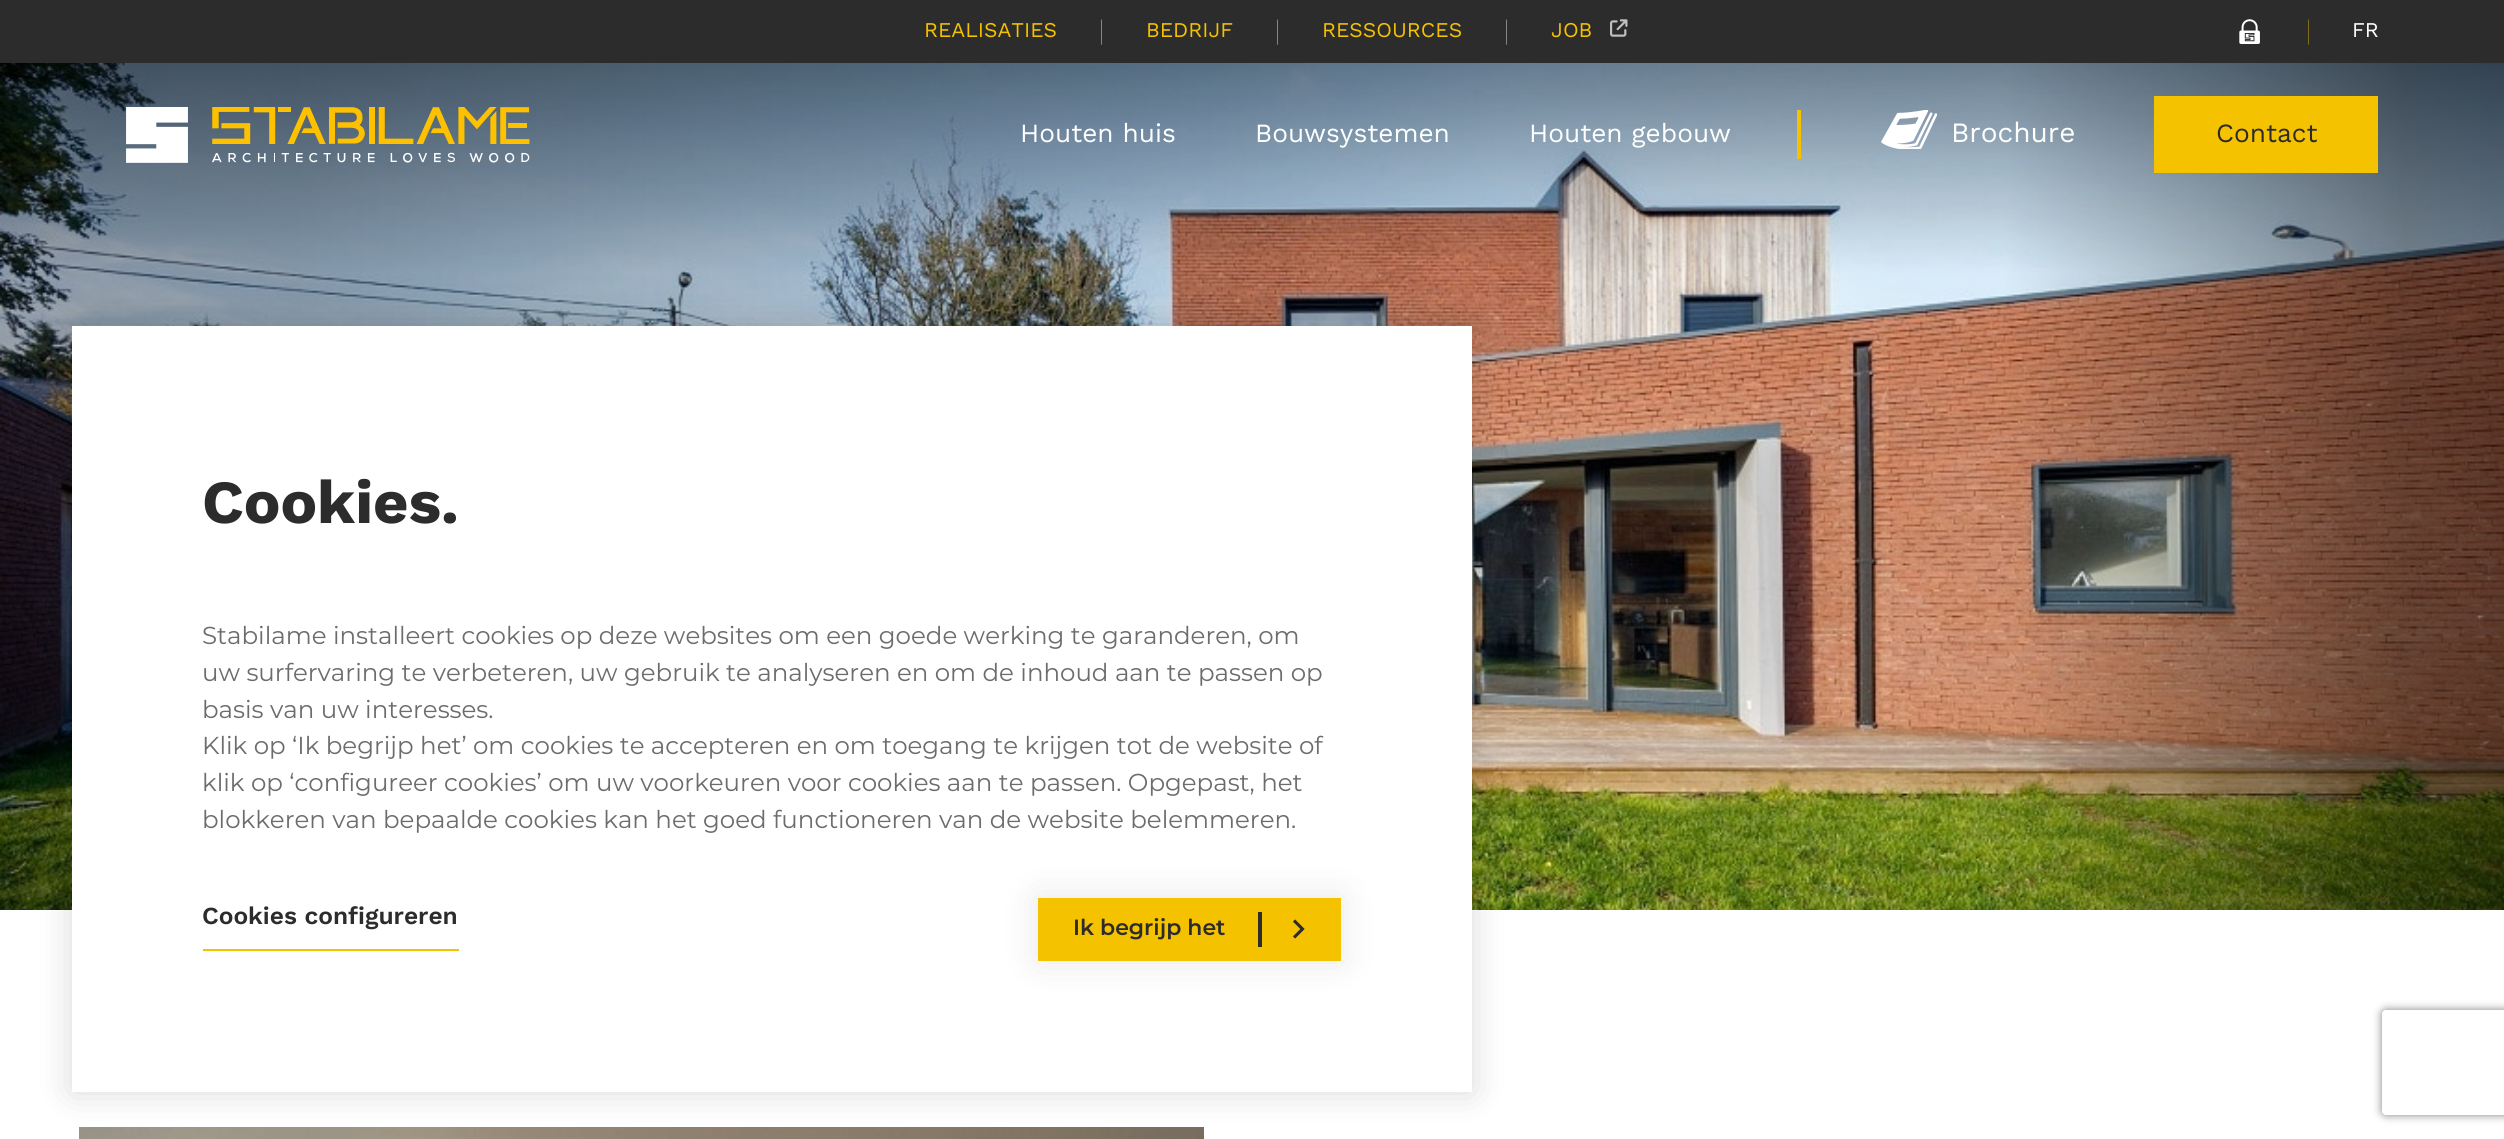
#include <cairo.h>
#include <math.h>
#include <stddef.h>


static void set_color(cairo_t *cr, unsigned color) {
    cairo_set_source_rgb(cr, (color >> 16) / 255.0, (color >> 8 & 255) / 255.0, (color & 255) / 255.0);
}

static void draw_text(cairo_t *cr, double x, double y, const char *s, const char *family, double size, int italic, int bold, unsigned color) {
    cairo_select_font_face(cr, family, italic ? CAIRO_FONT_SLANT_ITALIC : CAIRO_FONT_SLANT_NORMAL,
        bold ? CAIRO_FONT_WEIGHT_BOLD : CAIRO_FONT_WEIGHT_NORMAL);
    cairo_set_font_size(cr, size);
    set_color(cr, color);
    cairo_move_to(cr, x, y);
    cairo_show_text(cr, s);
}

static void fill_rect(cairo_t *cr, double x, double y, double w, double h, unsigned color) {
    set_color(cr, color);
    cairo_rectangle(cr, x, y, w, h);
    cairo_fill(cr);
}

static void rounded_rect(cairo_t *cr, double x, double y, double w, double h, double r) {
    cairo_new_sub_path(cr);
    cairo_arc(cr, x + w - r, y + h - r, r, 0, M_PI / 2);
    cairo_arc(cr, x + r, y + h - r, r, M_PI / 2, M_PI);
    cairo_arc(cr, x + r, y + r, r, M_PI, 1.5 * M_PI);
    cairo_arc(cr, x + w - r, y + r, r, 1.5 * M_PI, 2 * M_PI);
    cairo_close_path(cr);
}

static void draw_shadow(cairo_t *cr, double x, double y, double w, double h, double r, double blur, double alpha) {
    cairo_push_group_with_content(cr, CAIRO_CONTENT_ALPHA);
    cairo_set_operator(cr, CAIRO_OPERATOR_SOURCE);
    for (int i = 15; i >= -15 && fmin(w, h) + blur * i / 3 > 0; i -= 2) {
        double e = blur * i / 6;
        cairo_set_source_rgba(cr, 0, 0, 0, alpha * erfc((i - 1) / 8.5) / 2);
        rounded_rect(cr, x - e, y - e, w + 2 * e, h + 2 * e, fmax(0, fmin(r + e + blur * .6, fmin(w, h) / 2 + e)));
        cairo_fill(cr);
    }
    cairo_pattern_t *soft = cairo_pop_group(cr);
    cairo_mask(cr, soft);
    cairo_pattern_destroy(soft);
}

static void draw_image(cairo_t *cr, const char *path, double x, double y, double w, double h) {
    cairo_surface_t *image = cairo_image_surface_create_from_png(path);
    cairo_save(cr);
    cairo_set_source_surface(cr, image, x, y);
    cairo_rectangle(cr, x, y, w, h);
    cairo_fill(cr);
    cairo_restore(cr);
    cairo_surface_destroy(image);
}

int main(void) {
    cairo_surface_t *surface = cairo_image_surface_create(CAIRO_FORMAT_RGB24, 2504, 1139);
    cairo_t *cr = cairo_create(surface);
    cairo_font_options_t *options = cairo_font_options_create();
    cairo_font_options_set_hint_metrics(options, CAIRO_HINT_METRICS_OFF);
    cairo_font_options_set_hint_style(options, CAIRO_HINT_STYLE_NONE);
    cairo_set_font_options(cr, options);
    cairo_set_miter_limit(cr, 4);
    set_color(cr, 0xFFFFFF);
    cairo_paint(cr);
    fill_rect(cr, 0, 0, 2504, 63, 0x2C2C2C);
    draw_text(cr, 924, 37, "REALISATIES", "Work Sans", 21, 0, 0, 0xF5C200);
    draw_text(cr, 1099, 40, "|", "Work Sans Thin", 28, 0, 0, 0xFFFFFF);
    draw_text(cr, 1146, 37, "BEDRIJF", "Work Sans", 21, 0, 0, 0xF5C200);
    draw_text(cr, 1275, 40, "|", "Work Sans Thin", 28, 0, 0, 0xFFFFFF);
    draw_text(cr, 1322, 37, "RESSOURCES", "Work Sans", 21, 0, 0, 0xF5C200);
    draw_text(cr, 1504, 40, "|", "Work Sans Thin", 28, 0, 0, 0xFFFFFF);
    draw_text(cr, 1551, 37, "JOB", "Work Sans", 21, 0, 0, 0xF5C200);
    draw_image(cr, "assets/img1.png", 1610, 19, 18, 18);
    draw_image(cr, "assets/img2.png", 2239, 19, 21, 25);
    draw_text(cr, 2306, 40, "|", "Work Sans Thin", 28, 0, 0, 0xF5C200);
    draw_text(cr, 2352, 37, "FR", "Work Sans", 21, 0, 0, 0xFFFFFF);
    draw_image(cr, "assets/img3.png", 0, 63, 2504, 847);
    draw_image(cr, "assets/img4.png", 126, 107, 404, 56);
    draw_text(cr, 1020, 142, "Houten huis", "Work Sans", 26.25, 0, 0, 0xFFFFFF);
    draw_text(cr, 1255, 142, "Bouwsystemen", "Work Sans", 26.25, 0, 0, 0xFFFFFF);
    draw_text(cr, 1529, 142, "Houten gebouw", "Work Sans", 26.25, 0, 0, 0xFFFFFF);
    fill_rect(cr, 1797, 110, 4, 49, 0xF5C200);
    draw_image(cr, "assets/img5.png", 1881, 110, 56, 39);
    draw_text(cr, 1951, 142, "Brochure", "Work Sans", 28, 0, 0, 0xFFFFFF);
    fill_rect(cr, 2154, 96, 224, 77, 0xF5C200);
    draw_text(cr, 2216, 142, "Contact", "Work Sans", 26.25, 0, 0, 0x2C2C2C);
    draw_image(cr, "assets/img6.png", 79, 1127, 1125, 12);
    set_color(cr, 0x000000);
    draw_shadow(cr, 72, 326, 1400, 766, 0, 17.5, 0.15);
    fill_rect(cr, 72, 326, 1400, 766, 0xFFFFFF);
    draw_text(cr, 202, 523, "Cookies.", "Work Sans", 61.25, 0, 1, 0x2C2C2C);
    draw_text(cr, 202, 644, "Stabilame installeert cookies op deze websites om een goede werking te garanderen, om", "Montserrat", 24.5, 0, 0, 0x6C6C6C);
    draw_text(cr, 202, 681, "uw surfervaring te verbeteren, uw gebruik te analyseren en om de inhoud aan te passen op", "Montserrat", 24.5, 0, 0, 0x6C6C6C);
    draw_text(cr, 202, 718, "basis van uw interesses.", "Montserrat", 24.5, 0, 0, 0x6C6C6C);
    draw_text(cr, 202, 754, "Klik op ‘Ik begrijp het’ om cookies te accepteren en om toegang te krijgen tot de website of", "Montserrat", 24.5, 0, 0, 0x6C6C6C);
    draw_text(cr, 202, 791, "klik op ‘configureer cookies’ om uw voorkeuren voor cookies aan te passen. Opgepast, het", "Montserrat", 24.5, 0, 0, 0x6C6C6C);
    draw_text(cr, 202, 828, "blokkeren van bepaalde cookies kan het goed functioneren van de website belemmeren.", "Montserrat", 24.5, 0, 0, 0x6C6C6C);
    fill_rect(cr, 203, 949, 256, 2, 0xF5C200);
    draw_text(cr, 202, 924, "Cookies configureren", "Work Sans SemiBold", 24.5, 0, 0, 0x2C2C2C);
    set_color(cr, 0x000000);
    draw_shadow(cr, 1038, 898, 303, 63, 0, 17.5, 0.1);
    fill_rect(cr, 1038, 898, 303, 63, 0xF5C200);
    draw_text(cr, 1073, 935, "Ik begrijp het", "Montserrat SemiBold", 22, 0, 0, 0x2C2C2C);
    fill_rect(cr, 1258, 912, 4, 35, 0x2C2C2C);
    cairo_new_path(cr);
    cairo_move_to(cr, 1294, 920.5);
    cairo_line_to(cr, 1302.5, 929);
    cairo_line_to(cr, 1294, 937.5);
    cairo_set_line_width(cr, 3.1);
    cairo_stroke(cr);
    cairo_save(cr);
    cairo_set_fill_rule(cr, CAIRO_FILL_RULE_EVEN_ODD);
    cairo_new_path(cr);
    cairo_move_to(cr, 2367, 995);
    cairo_line_to(cr, 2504, 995);
    cairo_line_to(cr, 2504, 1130);
    cairo_line_to(cr, 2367, 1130);
    cairo_close_path(cr);
    cairo_move_to(cr, 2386, 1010);
    cairo_line_to(cr, 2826, 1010);
    cairo_curve_to(cr, 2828, 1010, 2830, 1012, 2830, 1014);
    cairo_line_to(cr, 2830, 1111);
    cairo_curve_to(cr, 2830, 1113, 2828, 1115, 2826, 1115);
    cairo_line_to(cr, 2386, 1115);
    cairo_curve_to(cr, 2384, 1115, 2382, 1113, 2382, 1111);
    cairo_line_to(cr, 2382, 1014);
    cairo_curve_to(cr, 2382, 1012, 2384, 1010, 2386, 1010);
    cairo_close_path(cr);
    cairo_clip(cr);
    set_color(cr, 0x808080);
    draw_shadow(cr, 2382, 1010, 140, 105, 4, 4.5, 1);
    cairo_restore(cr);
    cairo_surface_write_to_png(surface, "output.png");
    cairo_font_options_destroy(options);
    cairo_destroy(cr);
    cairo_surface_destroy(surface);
    return 0;
}
